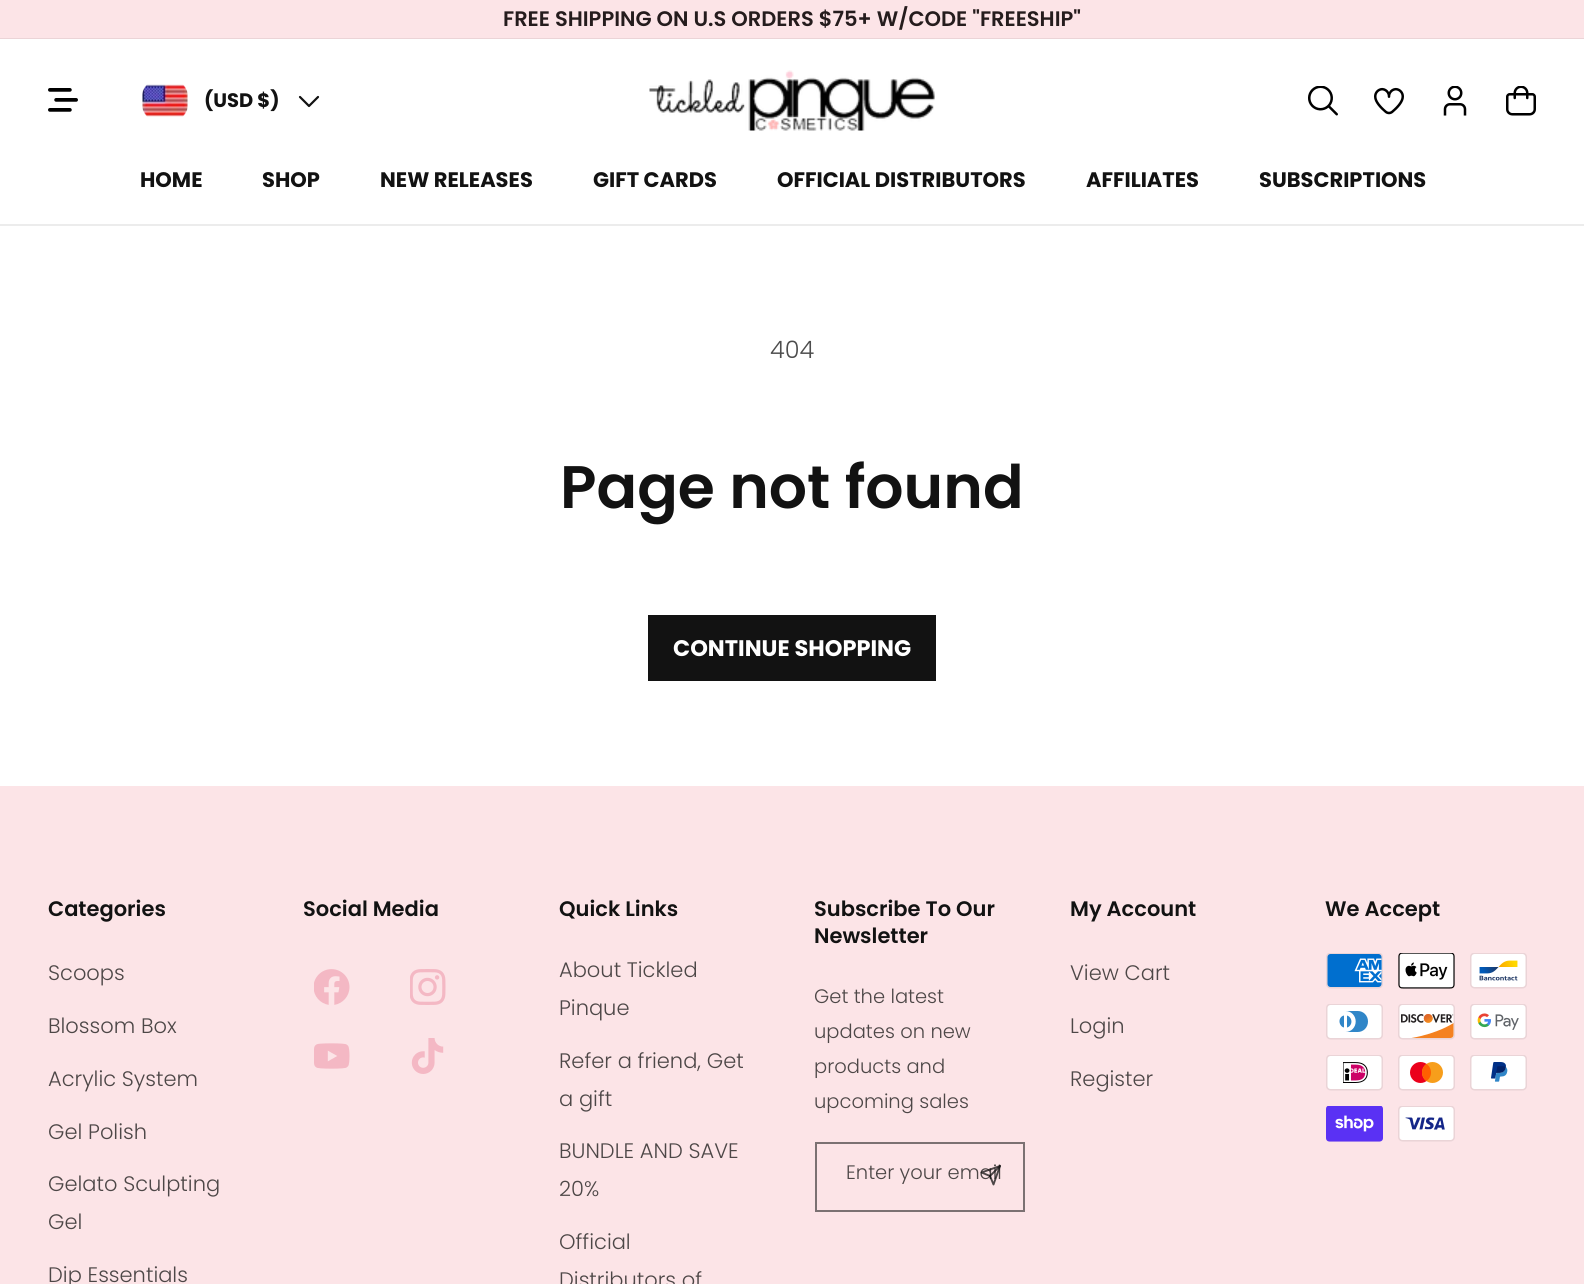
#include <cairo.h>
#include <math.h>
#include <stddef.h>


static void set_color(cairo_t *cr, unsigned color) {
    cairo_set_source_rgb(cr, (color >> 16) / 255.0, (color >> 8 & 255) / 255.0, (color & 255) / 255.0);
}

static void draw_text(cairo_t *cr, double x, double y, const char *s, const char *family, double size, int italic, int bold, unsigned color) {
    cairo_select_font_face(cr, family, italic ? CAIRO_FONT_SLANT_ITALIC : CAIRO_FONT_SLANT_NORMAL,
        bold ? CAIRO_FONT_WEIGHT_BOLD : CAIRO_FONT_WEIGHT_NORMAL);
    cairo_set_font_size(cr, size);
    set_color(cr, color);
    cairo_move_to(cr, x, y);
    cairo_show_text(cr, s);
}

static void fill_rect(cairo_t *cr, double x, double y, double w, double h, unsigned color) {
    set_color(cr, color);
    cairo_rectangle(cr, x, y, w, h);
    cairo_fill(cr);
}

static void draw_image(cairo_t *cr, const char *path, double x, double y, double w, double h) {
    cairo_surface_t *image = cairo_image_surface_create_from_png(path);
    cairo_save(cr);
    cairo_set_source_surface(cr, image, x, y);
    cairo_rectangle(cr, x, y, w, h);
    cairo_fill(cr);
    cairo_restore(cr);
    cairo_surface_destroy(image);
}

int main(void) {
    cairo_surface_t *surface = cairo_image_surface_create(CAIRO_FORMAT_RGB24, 1584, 1284);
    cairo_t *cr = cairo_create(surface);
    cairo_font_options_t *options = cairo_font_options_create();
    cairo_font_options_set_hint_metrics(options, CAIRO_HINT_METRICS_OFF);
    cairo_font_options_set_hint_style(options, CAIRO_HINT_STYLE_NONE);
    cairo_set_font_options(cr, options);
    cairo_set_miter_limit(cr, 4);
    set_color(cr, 0xFFFFFF);
    cairo_paint(cr);
    fill_rect(cr, 0, 0, 1584, 38, 0xFCE4E7);
    fill_rect(cr, 0, 38, 1584, 1, 0xEBD4D7);
    draw_text(cr, 503, 26, "FREE SHIPPING ON U.S ORDERS $75+ W/CODE \"FREESHIP\"", "Poppins SemiBold", 21, 0, 0, 0x251C1D);
    fill_rect(cr, 0, 224, 1584, 2, 0xECECEC);
    draw_image(cr, "assets/img1.png", 48, 88, 30, 24);
    draw_image(cr, "assets/img2.png", 142, 84, 46, 33);
    draw_text(cr, 204, 107, "(USD $)", "Poppins", 19.5, 0, 1, 0x121212);
    cairo_new_path(cr);
    cairo_move_to(cr, 300, 97);
    cairo_line_to(cr, 309, 106);
    cairo_line_to(cr, 318, 97);
    cairo_set_line_width(cr, 2.2);
    cairo_set_line_cap(cr, CAIRO_LINE_CAP_ROUND);
    cairo_set_line_join(cr, CAIRO_LINE_JOIN_ROUND);
    cairo_stroke(cr);
    draw_image(cr, "assets/img3.png", 649, 70, 286, 61);
    draw_image(cr, "assets/img4.png", 1308, 86, 30, 30);
    draw_image(cr, "assets/img5.png", 1374, 87, 30, 28);
    draw_image(cr, "assets/img6.png", 1443, 86, 24, 30);
    draw_image(cr, "assets/img7.png", 1506, 86, 30, 30);
    draw_text(cr, 140, 187, "HOME", "Poppins", 21, 0, 1, 0x121212);
    draw_text(cr, 262, 187, "SHOP", "Poppins", 21, 0, 1, 0x121212);
    draw_text(cr, 380, 187, "NEW RELEASES", "Poppins", 21, 0, 1, 0x121212);
    draw_text(cr, 593, 187, "GIFT CARDS", "Poppins", 21, 0, 1, 0x121212);
    draw_text(cr, 777, 187, "OFFICIAL DISTRIBUTORS", "Poppins", 21, 0, 1, 0x121212);
    draw_text(cr, 1086, 187, "AFFILIATES", "Poppins", 21, 0, 1, 0x121212);
    draw_text(cr, 1259, 187, "SUBSCRIPTIONS", "Poppins", 21, 0, 1, 0x121212);
    draw_text(cr, 770, 358, "404", "Poppins Light", 24, 0, 0, 0x4D4D4D);
    draw_text(cr, 560, 508, "Page not found", "Poppins SemiBold", 60, 0, 0, 0x121212);
    fill_rect(cr, 648, 615, 288, 66, 0x121212);
    draw_text(cr, 673, 656, "CONTINUE SHOPPING", "Poppins", 22.5, 0, 1, 0xFFFFFF);
    fill_rect(cr, 0, 786, 1584, 498, 0xFCE4E7);
    draw_text(cr, 48, 916, "Categories", "Poppins SemiBold", 21, 0, 0, 0x121212);
    draw_text(cr, 48, 980, "Scoops", "Poppins Light", 21, 0, 0, 0x4D4747);
    draw_text(cr, 48, 1033, "Blossom Box", "Poppins Light", 21, 0, 0, 0x4D4747);
    draw_text(cr, 48, 1086, "Acrylic System", "Poppins Light", 21, 0, 0, 0x4D4747);
    draw_text(cr, 48, 1139, "Gel Polish", "Poppins Light", 21, 0, 0, 0x4D4747);
    draw_text(cr, 48, 1191, "Gelato Sculpting", "Poppins Light", 21, 0, 0, 0x4D4747);
    draw_text(cr, 48, 1229, "Gel", "Poppins Light", 21, 0, 0, 0x4D4747);
    draw_text(cr, 48, 1282, "Dip Essentials", "Poppins Light", 21, 0, 0, 0x4D4747);
    draw_text(cr, 303, 916, "Social Media", "Poppins SemiBold", 21, 0, 0, 0x121212);
    draw_image(cr, "assets/img8.png", 314, 969, 36, 36);
    draw_image(cr, "assets/img9.png", 410, 969, 36, 36);
    draw_image(cr, "assets/img10.png", 314, 1043, 36, 26);
    draw_image(cr, "assets/img11.png", 411, 1038, 33, 36);
    draw_text(cr, 559, 916, "Quick Links", "Poppins SemiBold", 21, 0, 0, 0x121212);
    draw_text(cr, 559, 977, "About Tickled", "Poppins Light", 21, 0, 0, 0x4D4747);
    draw_text(cr, 559, 1015, "Pinque", "Poppins Light", 21, 0, 0, 0x4D4747);
    draw_text(cr, 559, 1068, "Refer a friend, Get", "Poppins Light", 21, 0, 0, 0x4D4747);
    draw_text(cr, 559, 1106, "a gift", "Poppins Light", 21, 0, 0, 0x4D4747);
    draw_text(cr, 559, 1158, "BUNDLE AND SAVE", "Poppins Light", 21, 0, 0, 0x4D4747);
    draw_text(cr, 559, 1196, "20%", "Poppins Light", 21, 0, 0, 0x4D4747);
    draw_text(cr, 559, 1249, "Official", "Poppins Light", 21, 0, 0, 0x4D4747);
    draw_text(cr, 559, 1287, "Distributors of", "Poppins Light", 21, 0, 0, 0x4D4747);
    draw_text(cr, 814, 916, "Subscribe To Our", "Poppins SemiBold", 21, 0, 0, 0x121212);
    draw_text(cr, 814, 943, "Newsletter", "Poppins SemiBold", 21, 0, 0, 0x121212);
    draw_text(cr, 814, 1003, "Get the latest", "Poppins Light", 19.5, 0, 0, 0x4D4747);
    draw_text(cr, 814, 1038, "updates on new", "Poppins Light", 19.5, 0, 0, 0x4D4747);
    draw_text(cr, 814, 1073, "products and", "Poppins Light", 19.5, 0, 0, 0x4D4747);
    draw_text(cr, 814, 1108, "upcoming sales", "Poppins Light", 19.5, 0, 0, 0x4D4747);
    cairo_rectangle(cr, 816, 1143, 208, 68);
    set_color(cr, 0x7B7172);
    cairo_set_line_width(cr, 2);
    cairo_set_line_cap(cr, CAIRO_LINE_CAP_BUTT);
    cairo_set_line_join(cr, CAIRO_LINE_JOIN_MITER);
    cairo_stroke(cr);
    draw_text(cr, 846, 1179, "Enter your email", "Poppins Light", 19.5, 0, 0, 0x4D4747);
    cairo_new_path(cr);
    cairo_move_to(cr, 1000, 1166);
    cairo_line_to(cr, 990, 1176);
    cairo_set_source_rgba(cr, 0.071, 0.071, 0.071, 0.75);
    cairo_set_line_width(cr, 1.9);
    cairo_set_line_cap(cr, CAIRO_LINE_CAP_ROUND);
    cairo_set_line_join(cr, CAIRO_LINE_JOIN_ROUND);
    cairo_stroke(cr);
    cairo_new_path(cr);
    cairo_move_to(cr, 1000, 1166);
    cairo_line_to(cr, 993.5, 1184.5);
    cairo_line_to(cr, 990, 1176);
    cairo_line_to(cr, 981.5, 1172.5);
    cairo_close_path(cr);
    cairo_stroke(cr);
    draw_text(cr, 1070, 916, "My Account", "Poppins SemiBold", 21, 0, 0, 0x121212);
    draw_text(cr, 1070, 980, "View Cart", "Poppins Light", 21, 0, 0, 0x4D4747);
    draw_text(cr, 1070, 1033, "Login", "Poppins Light", 21, 0, 0, 0x4D4747);
    draw_text(cr, 1070, 1086, "Register", "Poppins Light", 21, 0, 0, 0x4D4747);
    draw_text(cr, 1325, 916, "We Accept", "Poppins SemiBold", 21, 0, 0, 0x121212);
    draw_image(cr, "assets/img12.png", 1326, 953, 57, 36);
    draw_image(cr, "assets/img13.png", 1398, 953, 57, 36);
    draw_image(cr, "assets/img14.png", 1470, 953, 57, 36);
    draw_image(cr, "assets/img15.png", 1326, 1004, 57, 36);
    draw_image(cr, "assets/img16.png", 1398, 1004, 57, 36);
    draw_image(cr, "assets/img17.png", 1470, 1004, 57, 36);
    draw_image(cr, "assets/img18.png", 1326, 1055, 57, 36);
    draw_image(cr, "assets/img19.png", 1398, 1055, 57, 36);
    draw_image(cr, "assets/img20.png", 1470, 1055, 57, 36);
    draw_image(cr, "assets/img21.png", 1326, 1106, 57, 36);
    draw_image(cr, "assets/img22.png", 1398, 1106, 57, 36);
    cairo_surface_write_to_png(surface, "output.png");
    cairo_font_options_destroy(options);
    cairo_destroy(cr);
    cairo_surface_destroy(surface);
    return 0;
}
